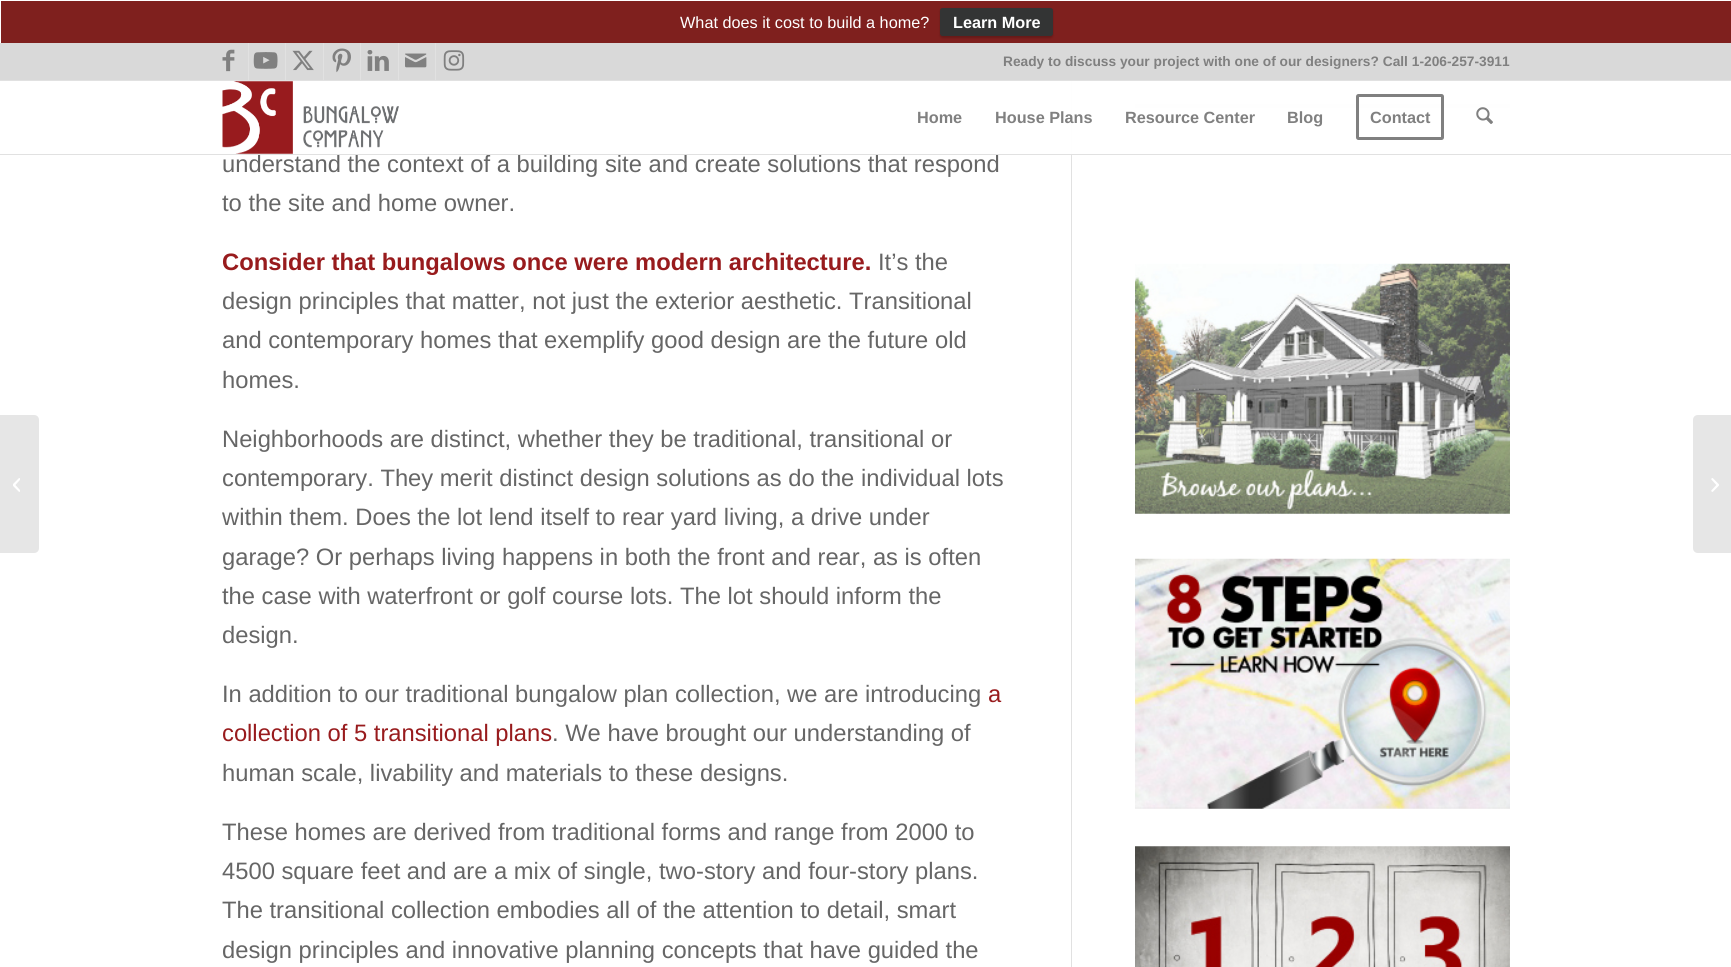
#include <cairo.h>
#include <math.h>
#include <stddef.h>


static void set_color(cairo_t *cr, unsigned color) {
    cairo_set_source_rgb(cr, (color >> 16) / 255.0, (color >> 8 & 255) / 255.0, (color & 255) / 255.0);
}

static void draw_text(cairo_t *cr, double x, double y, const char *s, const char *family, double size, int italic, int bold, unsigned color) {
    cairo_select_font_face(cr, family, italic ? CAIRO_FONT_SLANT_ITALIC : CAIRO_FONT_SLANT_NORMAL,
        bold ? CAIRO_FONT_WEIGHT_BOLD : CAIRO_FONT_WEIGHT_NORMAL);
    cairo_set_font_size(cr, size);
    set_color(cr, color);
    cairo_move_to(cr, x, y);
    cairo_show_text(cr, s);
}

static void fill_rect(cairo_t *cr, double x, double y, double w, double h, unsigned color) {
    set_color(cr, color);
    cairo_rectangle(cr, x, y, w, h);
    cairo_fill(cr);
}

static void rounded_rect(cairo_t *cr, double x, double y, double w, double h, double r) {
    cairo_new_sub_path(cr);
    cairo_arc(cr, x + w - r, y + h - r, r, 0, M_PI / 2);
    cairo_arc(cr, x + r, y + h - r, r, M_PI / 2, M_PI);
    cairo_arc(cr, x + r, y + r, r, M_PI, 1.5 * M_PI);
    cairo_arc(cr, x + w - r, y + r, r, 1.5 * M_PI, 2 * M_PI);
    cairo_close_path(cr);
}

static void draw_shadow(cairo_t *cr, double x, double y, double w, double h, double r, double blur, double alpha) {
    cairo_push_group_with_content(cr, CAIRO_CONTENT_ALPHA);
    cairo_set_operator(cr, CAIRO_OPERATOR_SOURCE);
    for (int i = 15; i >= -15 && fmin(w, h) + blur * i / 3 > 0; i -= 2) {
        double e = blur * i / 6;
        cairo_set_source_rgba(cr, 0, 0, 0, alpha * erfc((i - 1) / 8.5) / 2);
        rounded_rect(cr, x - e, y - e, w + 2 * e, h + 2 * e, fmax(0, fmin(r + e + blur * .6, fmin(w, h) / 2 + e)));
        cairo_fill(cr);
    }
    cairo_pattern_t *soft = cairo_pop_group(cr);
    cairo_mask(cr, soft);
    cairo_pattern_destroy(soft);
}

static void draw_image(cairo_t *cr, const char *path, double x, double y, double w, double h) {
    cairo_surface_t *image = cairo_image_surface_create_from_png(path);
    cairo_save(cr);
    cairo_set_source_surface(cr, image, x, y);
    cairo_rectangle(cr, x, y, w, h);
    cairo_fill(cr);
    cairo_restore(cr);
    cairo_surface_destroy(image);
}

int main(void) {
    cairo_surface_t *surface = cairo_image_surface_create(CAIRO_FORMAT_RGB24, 1731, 967);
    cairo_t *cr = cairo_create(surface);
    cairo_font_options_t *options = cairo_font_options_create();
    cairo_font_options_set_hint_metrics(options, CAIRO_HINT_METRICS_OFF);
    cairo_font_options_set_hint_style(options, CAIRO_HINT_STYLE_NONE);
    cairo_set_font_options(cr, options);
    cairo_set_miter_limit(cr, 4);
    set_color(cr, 0xFFFFFF);
    cairo_paint(cr);
    fill_rect(cr, 1, 1, 1730, 42, 0x7F201E);
    draw_text(cr, 680, 28, "What does it cost to build a home?", "Liberation Sans", 16.25, 0, 0, 0xFFFFFF);
    set_color(cr, 0x000000);
    draw_shadow(cr, 940, 9, 113, 29, 2.5, 1, 0.2);
    set_color(cr, 0x333434);
    rounded_rect(cr, 940, 8, 113, 28, 2.5);
    cairo_fill(cr);
    draw_text(cr, 953, 28, "Learn More", "Liberation Sans", 16.25, 0, 1, 0xFFFFFF);
    fill_rect(cr, 0, 43, 1731, 37, 0xD9D9D9);
    fill_rect(cr, 0, 80, 1731, 1, 0xE1E1E1);
    fill_rect(cr, 248, 43, 1, 37, 0xE1E1E1);
    draw_image(cr, "assets/img1.png", 222, 49, 13, 23);
    fill_rect(cr, 285, 43, 1, 37, 0xE1E1E1);
    draw_image(cr, "assets/img2.png", 253, 52, 25, 17);
    fill_rect(cr, 323, 43, 1, 37, 0xE1E1E1);
    draw_image(cr, "assets/img3.png", 292, 50, 22, 21);
    fill_rect(cr, 360, 43, 1, 37, 0xE1E1E1);
    draw_image(cr, "assets/img4.png", 332, 48, 19, 25);
    fill_rect(cr, 398, 43, 1, 37, 0xE1E1E1);
    draw_image(cr, "assets/img5.png", 367, 50, 22, 21);
    fill_rect(cr, 435, 43, 1, 37, 0xE1E1E1);
    draw_image(cr, "assets/img6.png", 405, 53, 22, 15);
    draw_image(cr, "assets/img7.png", 443, 50, 22, 21);
    draw_text(cr, 1003, 66, "Ready to discuss your project with one of our designers? Call 1-206-257-3911", "Liberation Sans", 13.75, 0, 1, 0x808080);
    fill_rect(cr, 1071, 81, 1, 886, 0xE1E1E1);
    fill_rect(cr, 1135, 104, 375, 4, 0xE1E1E1);
    cairo_set_source_rgba(cr, 1, 1, 1, 0.95);
    cairo_rectangle(cr, 1071, 81, 439, 73);
    cairo_fill(cr);
    draw_text(cr, 222, 172, "understand the context of a building site and create solutions that respond", "Liberation Sans", 23.75, 0, 0, 0x666666);
    fill_rect(cr, 0, 154, 1731, 1, 0xE1E1E1);
    draw_image(cr, "assets/img8.png", 222, 81, 177, 73);
    draw_text(cr, 917, 123, "Home", "Liberation Sans", 16.25, 0, 1, 0x808080);
    draw_text(cr, 995, 123, "House Plans", "Liberation Sans", 16.25, 0, 1, 0x808080);
    draw_text(cr, 1125, 123, "Resource Center", "Liberation Sans", 16.25, 0, 1, 0x808080);
    draw_text(cr, 1287, 123, "Blog", "Liberation Sans", 16.25, 0, 1, 0x808080);
    rounded_rect(cr, 1357.5, 95.5, 85, 43, 1);
    cairo_set_line_width(cr, 3);
    cairo_stroke(cr);
    draw_text(cr, 1370, 123, "Contact", "Liberation Sans", 16.25, 0, 1, 0x808080);
    draw_image(cr, "assets/img9.png", 1476, 107, 17, 17);
    set_color(cr, 0xE6E6E6);
    cairo_new_path(cr);
    cairo_move_to(cr, 0, 415);
    cairo_line_to(cr, 34, 415);
    cairo_curve_to(cr, 37, 415, 39, 417, 39, 420);
    cairo_line_to(cr, 39, 548);
    cairo_curve_to(cr, 39, 551, 37, 553, 34, 553);
    cairo_line_to(cr, 0, 553);
    cairo_close_path(cr);
    cairo_fill(cr);
    draw_image(cr, "assets/img10.png", 13, 478, 7, 14);
    draw_text(cr, 222, 211, "to the site and home owner.", "Liberation Sans", 23.75, 0, 0, 0x666666);
    draw_text(cr, 222, 270, "Consider that bungalows once were modern architecture.", "Liberation Sans", 23.75, 0, 1, 0x981B1D);
    draw_text(cr, 878, 270, "It’s the", "Liberation Sans", 23.75, 0, 0, 0x666666);
    draw_text(cr, 222, 309, "design principles that matter, not just the exterior aesthetic. Transitional", "Liberation Sans", 23.75, 0, 0, 0x666666);
    draw_text(cr, 222, 348, "and contemporary homes that exemplify good design are the future old", "Liberation Sans", 23.75, 0, 0, 0x666666);
    draw_text(cr, 222, 388, "homes.", "Liberation Sans", 23.75, 0, 0, 0x666666);
    draw_text(cr, 222, 447, "Neighborhoods are distinct, whether they be traditional, transitional or", "Liberation Sans", 23.75, 0, 0, 0x666666);
    draw_text(cr, 222, 486, "contemporary. They merit distinct design solutions as do the individual lots", "Liberation Sans", 23.75, 0, 0, 0x666666);
    draw_text(cr, 222, 525, "within them. Does the lot lend itself to rear yard living, a drive under", "Liberation Sans", 23.75, 0, 0, 0x666666);
    draw_text(cr, 222, 565, "garage? Or perhaps living happens in both the front and rear, as is often", "Liberation Sans", 23.75, 0, 0, 0x666666);
    draw_text(cr, 222, 604, "the case with waterfront or golf course lots. The lot should inform the", "Liberation Sans", 23.75, 0, 0, 0x666666);
    draw_text(cr, 222, 643, "design.", "Liberation Sans", 23.75, 0, 0, 0x666666);
    draw_text(cr, 222, 702, "In addition to our traditional bungalow plan collection, we are introducing", "Liberation Sans", 23.75, 0, 0, 0x666666);
    draw_text(cr, 988, 702, "a", "Liberation Sans", 23.75, 0, 0, 0x981B1D);
    draw_text(cr, 222, 741, "collection of 5 transitional plans", "Liberation Sans", 23.75, 0, 0, 0x981B1D);
    draw_text(cr, 552, 741, ". We have brought our understanding of", "Liberation Sans", 23.75, 0, 0, 0x666666);
    draw_text(cr, 222, 781, "human scale, livability and materials to these designs.", "Liberation Sans", 23.75, 0, 0, 0x666666);
    draw_text(cr, 222, 840, "These homes are derived from traditional forms and range from 2000 to", "Liberation Sans", 23.75, 0, 0, 0x666666);
    draw_text(cr, 222, 879, "4500 square feet and are a mix of single, two-story and four-story plans.", "Liberation Sans", 23.75, 0, 0, 0x666666);
    draw_text(cr, 222, 918, "The transitional collection embodies all of the attention to detail, smart", "Liberation Sans", 23.75, 0, 0, 0x666666);
    draw_text(cr, 222, 958, "design principles and innovative planning concepts that have guided the", "Liberation Sans", 23.75, 0, 0, 0x666666);
    draw_image(cr, "assets/img11.png", 1135, 263, 375, 251);
    draw_image(cr, "assets/img12.png", 1135, 558, 375, 251);
    draw_image(cr, "assets/img13.png", 1135, 846, 375, 121);
    set_color(cr, 0xE6E6E6);
    cairo_new_path(cr);
    cairo_move_to(cr, 1698, 415);
    cairo_line_to(cr, 1731, 415);
    cairo_line_to(cr, 1731, 553);
    cairo_line_to(cr, 1698, 553);
    cairo_curve_to(cr, 1695, 553, 1693, 551, 1693, 548);
    cairo_line_to(cr, 1693, 420);
    cairo_curve_to(cr, 1693, 417, 1695, 415, 1698, 415);
    cairo_close_path(cr);
    cairo_fill(cr);
    draw_image(cr, "assets/img14.png", 1711, 478, 8, 14);
    cairo_surface_write_to_png(surface, "output.png");
    cairo_font_options_destroy(options);
    cairo_destroy(cr);
    cairo_surface_destroy(surface);
    return 0;
}
